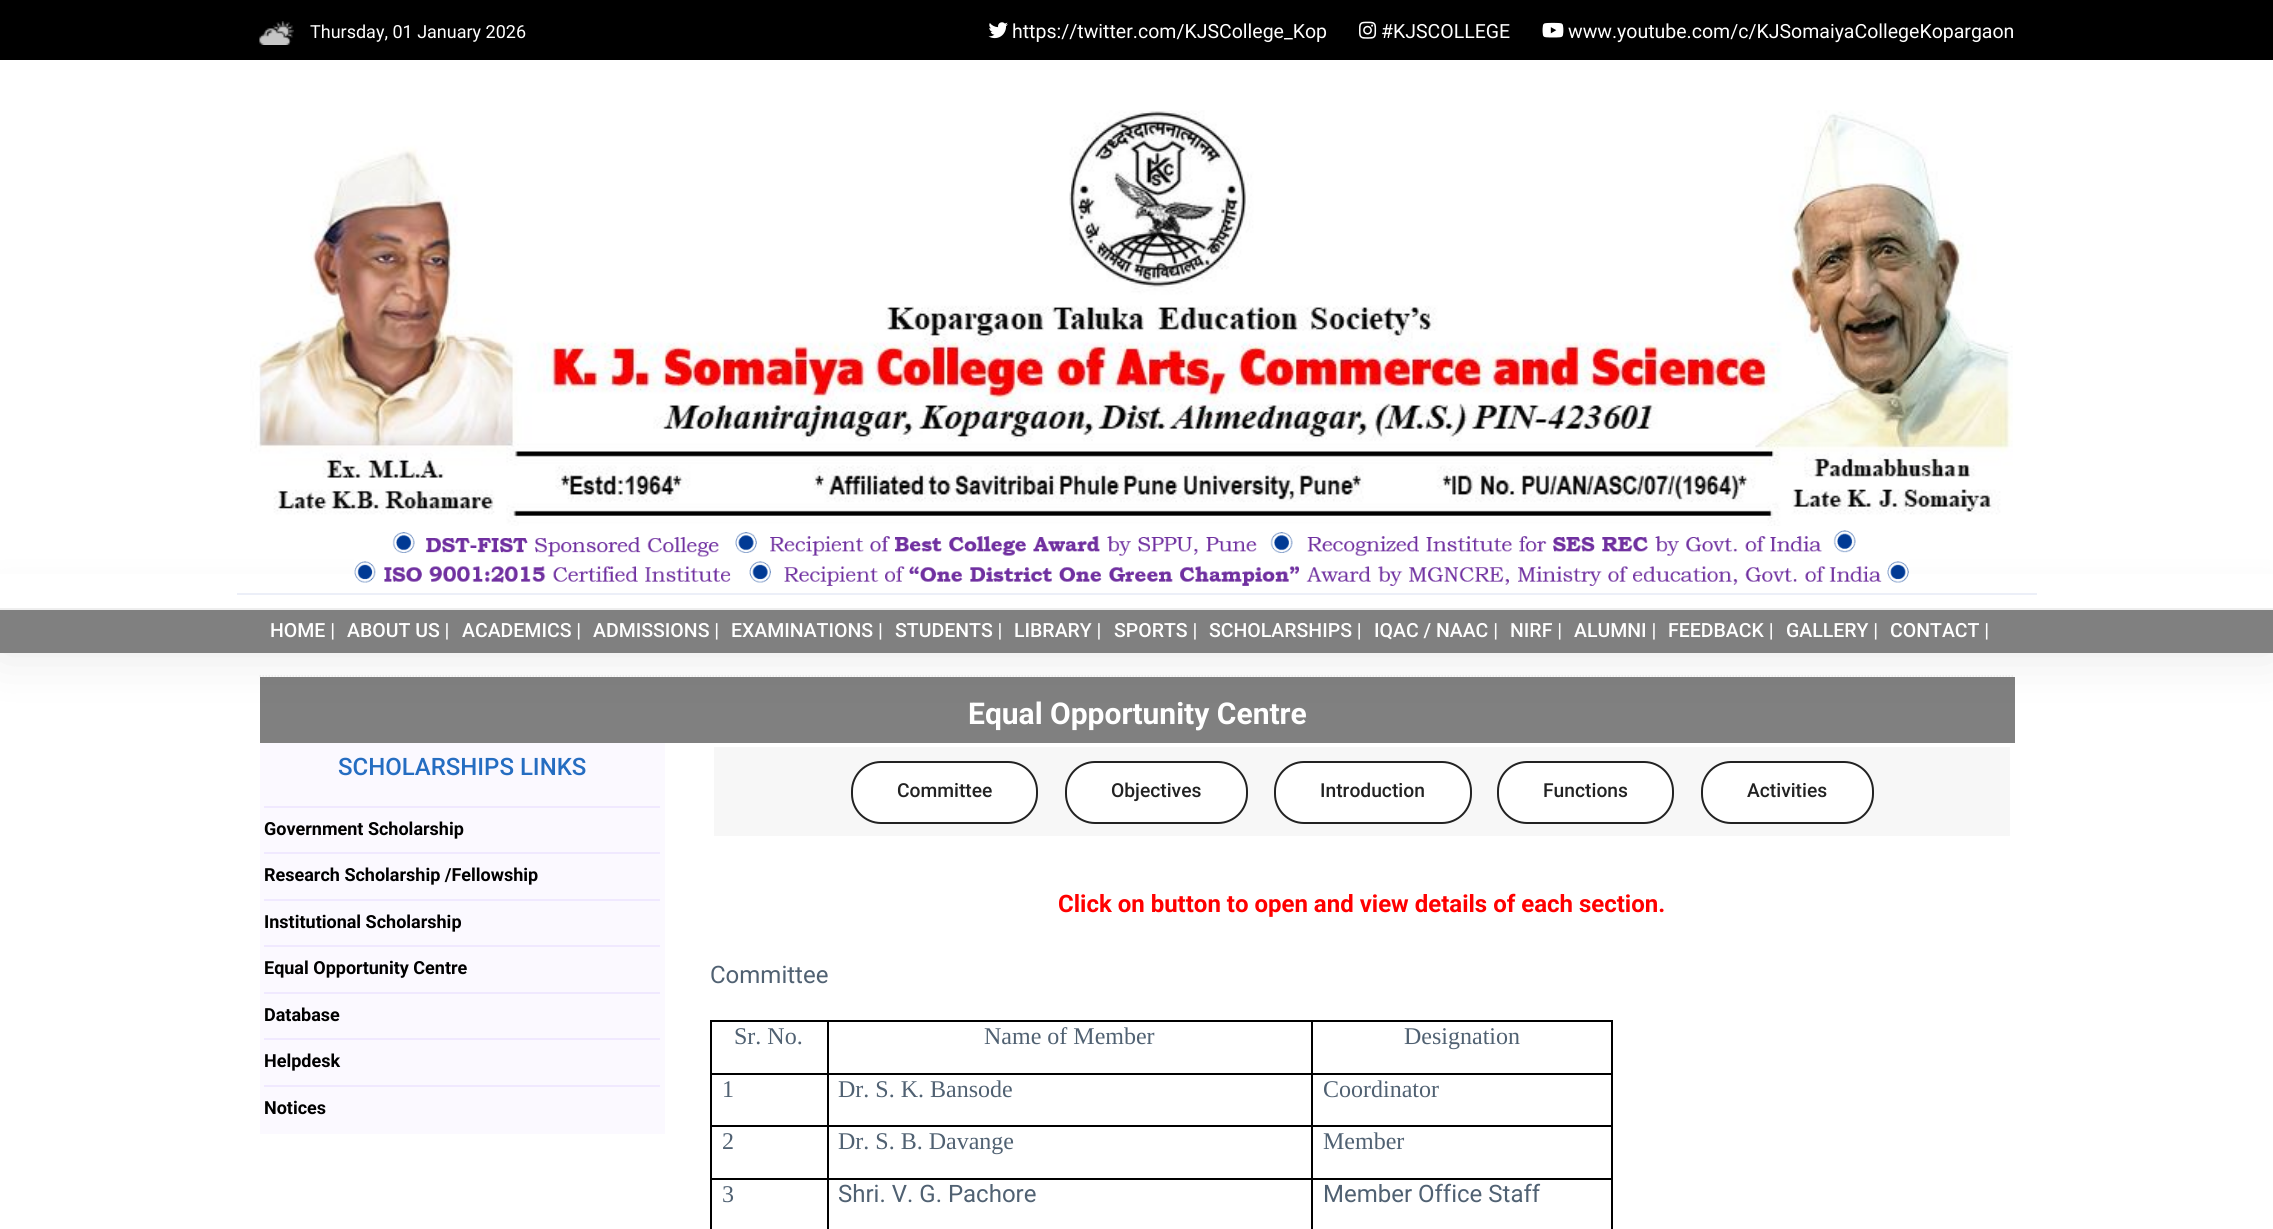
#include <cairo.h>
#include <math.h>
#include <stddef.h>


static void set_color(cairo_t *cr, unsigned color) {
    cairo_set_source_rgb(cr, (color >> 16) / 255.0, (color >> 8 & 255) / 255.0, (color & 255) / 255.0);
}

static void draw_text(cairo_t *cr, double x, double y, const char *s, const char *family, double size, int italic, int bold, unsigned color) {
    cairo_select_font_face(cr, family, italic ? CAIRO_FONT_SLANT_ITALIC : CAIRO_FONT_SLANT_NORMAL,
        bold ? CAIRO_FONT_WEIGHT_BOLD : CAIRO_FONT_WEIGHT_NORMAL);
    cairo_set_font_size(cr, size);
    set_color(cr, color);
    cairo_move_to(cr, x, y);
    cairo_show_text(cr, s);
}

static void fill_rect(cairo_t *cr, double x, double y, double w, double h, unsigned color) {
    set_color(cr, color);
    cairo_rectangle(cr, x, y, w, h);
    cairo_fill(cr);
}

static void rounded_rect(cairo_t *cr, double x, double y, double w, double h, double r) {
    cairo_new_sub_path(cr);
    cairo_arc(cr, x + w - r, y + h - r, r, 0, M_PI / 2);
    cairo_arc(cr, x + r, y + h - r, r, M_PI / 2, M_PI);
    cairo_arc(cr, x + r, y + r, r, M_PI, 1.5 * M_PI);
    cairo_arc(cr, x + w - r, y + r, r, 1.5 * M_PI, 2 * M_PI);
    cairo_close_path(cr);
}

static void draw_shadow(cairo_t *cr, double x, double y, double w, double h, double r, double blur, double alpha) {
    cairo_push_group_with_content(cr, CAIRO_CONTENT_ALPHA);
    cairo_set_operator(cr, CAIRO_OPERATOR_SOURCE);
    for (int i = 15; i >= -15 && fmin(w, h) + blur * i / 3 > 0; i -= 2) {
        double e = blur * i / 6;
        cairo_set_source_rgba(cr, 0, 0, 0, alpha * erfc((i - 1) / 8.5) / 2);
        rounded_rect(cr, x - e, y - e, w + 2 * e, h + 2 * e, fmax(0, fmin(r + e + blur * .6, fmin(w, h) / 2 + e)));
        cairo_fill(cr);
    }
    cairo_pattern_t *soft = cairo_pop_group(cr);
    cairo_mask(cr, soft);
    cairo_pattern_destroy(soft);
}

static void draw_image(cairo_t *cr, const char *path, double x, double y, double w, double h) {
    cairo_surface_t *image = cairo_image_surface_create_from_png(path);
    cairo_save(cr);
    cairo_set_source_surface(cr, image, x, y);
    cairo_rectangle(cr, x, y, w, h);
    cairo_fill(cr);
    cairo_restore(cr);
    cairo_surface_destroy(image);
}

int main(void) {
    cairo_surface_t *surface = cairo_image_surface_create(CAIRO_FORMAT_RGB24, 2273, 1229);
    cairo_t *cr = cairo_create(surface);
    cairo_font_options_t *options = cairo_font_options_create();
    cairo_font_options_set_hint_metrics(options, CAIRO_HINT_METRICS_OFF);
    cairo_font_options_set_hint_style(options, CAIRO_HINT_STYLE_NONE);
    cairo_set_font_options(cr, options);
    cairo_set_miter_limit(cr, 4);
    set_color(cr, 0xFFFFFF);
    cairo_paint(cr);
    fill_rect(cr, 0, 0, 2273, 60, 0x000000);
    draw_image(cr, "assets/img1.png", 259, 21, 35, 24);
    draw_text(cr, 310, 38, "Thursday, 01 January 2026", "Roboto", 18, 0, 0, 0xFFFFFF);
    draw_image(cr, "assets/img2.png", 988, 22, 20, 17);
    draw_text(cr, 1012, 38, "https://twitter.com/KJSCollege_Kop", "Roboto", 19.5, 0, 0, 0xFFFFFF);
    draw_image(cr, "assets/img3.png", 1359, 21, 18, 18);
    draw_text(cr, 1381, 38, "#KJSCOLLEGE", "Roboto", 19.5, 0, 0, 0xFFFFFF);
    draw_image(cr, "assets/img4.png", 1542, 22, 22, 16);
    draw_text(cr, 1568, 38, "www.youtube.com/c/KJSomaiyaCollegeKopargaon", "Roboto", 19.5, 0, 0, 0xFFFFFF);
    cairo_new_path(cr);
    cairo_move_to(cr, 259.5, 676);
    cairo_line_to(cr, 2014.5, 676);
    set_color(cr, 0xEEEEEE);
    cairo_set_line_width(cr, 1.5);
    cairo_set_dash(cr, (double[]){1.5, 1.5}, 2, 0);
    cairo_stroke(cr);
    fill_rect(cr, 260, 677, 1755, 66, 0x808080);
    set_color(cr, 0x000000);
    draw_shadow(cr, 0, 608, 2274, 45, 0, 27, 0.1);
    fill_rect(cr, 0, 574, 2273, 34, 0xFFFFFF);
    draw_image(cr, "assets/img5.png", 250, 110, 1763, 416);
    draw_image(cr, "assets/img6.png", 354, 530, 1555, 56);
    fill_rect(cr, 237, 593, 1800, 2, 0xECEFF8);
    fill_rect(cr, 0, 610, 2273, 43, 0x808080);
    fill_rect(cr, 0, 608, 2273, 2, 0xEEEEEE);
    draw_text(cr, 270, 637, "HOME |", "Roboto Medium", 19.5, 0, 0, 0xFFFFFF);
    draw_text(cr, 347, 637, "ABOUT US |", "Roboto Medium", 19.5, 0, 0, 0xFFFFFF);
    draw_text(cr, 462, 637, "ACADEMICS |", "Roboto Medium", 19.5, 0, 0, 0xFFFFFF);
    draw_text(cr, 593, 637, "ADMISSIONS |", "Roboto Medium", 19.5, 0, 0, 0xFFFFFF);
    draw_text(cr, 731, 637, "EXAMINATIONS |", "Roboto Medium", 19.5, 0, 0, 0xFFFFFF);
    draw_text(cr, 895, 637, "STUDENTS |", "Roboto Medium", 19.5, 0, 0, 0xFFFFFF);
    draw_text(cr, 1014, 637, "LIBRARY |", "Roboto Medium", 19.5, 0, 0, 0xFFFFFF);
    draw_text(cr, 1114, 637, "SPORTS |", "Roboto Medium", 19.5, 0, 0, 0xFFFFFF);
    draw_text(cr, 1209, 637, "SCHOLARSHIPS |", "Roboto Medium", 19.5, 0, 0, 0xFFFFFF);
    draw_text(cr, 1374, 637, "IQAC / NAAC |", "Roboto Medium", 19.5, 0, 0, 0xFFFFFF);
    draw_text(cr, 1510, 637, "NIRF |", "Roboto Medium", 19.5, 0, 0, 0xFFFFFF);
    draw_text(cr, 1574, 637, "ALUMNI |", "Roboto Medium", 19.5, 0, 0, 0xFFFFFF);
    draw_text(cr, 1668, 637, "FEEDBACK |", "Roboto Medium", 19.5, 0, 0, 0xFFFFFF);
    draw_text(cr, 1786, 637, "GALLERY |", "Roboto Medium", 19.5, 0, 0, 0xFFFFFF);
    draw_text(cr, 1890, 637, "CONTACT |", "Roboto Medium", 19.5, 0, 0, 0xFFFFFF);
    draw_text(cr, 968, 724, "Equal Opportunity Centre", "Roboto", 30, 0, 1, 0xFFFFFF);
    fill_rect(cr, 260, 743, 405, 391, 0xFBF9FF);
    draw_text(cr, 338, 775, "SCHOLARSHIPS LINKS", "Roboto Medium", 24, 0, 0, 0x256DC1);
    fill_rect(cr, 264, 806, 396, 2, 0xF0E9FF);
    fill_rect(cr, 264, 852, 396, 2, 0xF0E9FF);
    draw_text(cr, 264, 835, "Government Scholarship", "Roboto", 18, 0, 1, 0x000000);
    fill_rect(cr, 264, 899, 396, 2, 0xF0E9FF);
    draw_text(cr, 264, 881, "Research Scholarship /Fellowship", "Roboto", 18, 0, 1, 0x000000);
    fill_rect(cr, 264, 945, 396, 2, 0xF0E9FF);
    draw_text(cr, 264, 928, "Institutional Scholarship", "Roboto", 18, 0, 1, 0x000000);
    fill_rect(cr, 264, 992, 396, 2, 0xF0E9FF);
    draw_text(cr, 264, 974, "Equal Opportunity Centre", "Roboto", 18, 0, 1, 0x000000);
    fill_rect(cr, 264, 1038, 396, 2, 0xF0E9FF);
    draw_text(cr, 264, 1021, "Database", "Roboto", 18, 0, 1, 0x000000);
    fill_rect(cr, 264, 1085, 396, 2, 0xF0E9FF);
    draw_text(cr, 264, 1067, "Helpdesk", "Roboto", 18, 0, 1, 0x000000);
    draw_text(cr, 264, 1114, "Notices", "Roboto", 18, 0, 1, 0x000000);
    fill_rect(cr, 714, 747, 1296, 89, 0xF7F7F7);
    set_color(cr, 0xFFFFFF);
    rounded_rect(cr, 852, 762, 185, 61, 29);
    cairo_fill_preserve(cr);
    set_color(cr, 0x222222);
    cairo_set_line_width(cr, 2);
    cairo_set_dash(cr, NULL, 0, 0);
    cairo_stroke(cr);
    draw_text(cr, 897, 797, "Committee", "Roboto Medium", 19.25, 0, 0, 0x222222);
    set_color(cr, 0xFFFFFF);
    rounded_rect(cr, 1066, 762, 181, 61, 29);
    cairo_fill_preserve(cr);
    set_color(cr, 0x222222);
    cairo_stroke(cr);
    draw_text(cr, 1111, 797, "Objectives", "Roboto Medium", 19.25, 0, 0, 0x222222);
    set_color(cr, 0xFFFFFF);
    rounded_rect(cr, 1275, 762, 196, 61, 29);
    cairo_fill_preserve(cr);
    set_color(cr, 0x222222);
    cairo_stroke(cr);
    draw_text(cr, 1320, 797, "Introduction", "Roboto Medium", 19.25, 0, 0, 0x222222);
    set_color(cr, 0xFFFFFF);
    rounded_rect(cr, 1498, 762, 175, 61, 29);
    cairo_fill_preserve(cr);
    set_color(cr, 0x222222);
    cairo_stroke(cr);
    draw_text(cr, 1543, 797, "Functions", "Roboto Medium", 19.25, 0, 0, 0x222222);
    set_color(cr, 0xFFFFFF);
    rounded_rect(cr, 1702, 762, 171, 61, 29);
    cairo_fill_preserve(cr);
    set_color(cr, 0x222222);
    cairo_stroke(cr);
    draw_text(cr, 1747, 797, "Activities", "Roboto Medium", 19.25, 0, 0, 0x222222);
    draw_text(cr, 1058, 912, "Click on button to open and view details of each section.", "Roboto", 24, 0, 1, 0xFF0000);
    draw_text(cr, 710, 983, "Committee", "Roboto", 24, 0, 0, 0x506172);
    fill_rect(cr, 710, 1020, 903, 2, 0x000000);
    fill_rect(cr, 1611, 1073, 2, 156, 0x000000);
    fill_rect(cr, 1611, 1020, 2, 54, 0x000000);
    fill_rect(cr, 1311, 1178, 2, 51, 0x000000);
    fill_rect(cr, 1311, 1178, 302, 2, 0x000000);
    fill_rect(cr, 1311, 1125, 2, 54, 0x000000);
    fill_rect(cr, 1311, 1125, 302, 2, 0x000000);
    fill_rect(cr, 1311, 1073, 2, 54, 0x000000);
    fill_rect(cr, 1311, 1073, 302, 2, 0x000000);
    fill_rect(cr, 1311, 1020, 2, 54, 0x000000);
    fill_rect(cr, 827, 1178, 2, 51, 0x000000);
    fill_rect(cr, 827, 1178, 486, 2, 0x000000);
    fill_rect(cr, 827, 1125, 2, 54, 0x000000);
    fill_rect(cr, 827, 1125, 486, 2, 0x000000);
    fill_rect(cr, 827, 1073, 2, 54, 0x000000);
    fill_rect(cr, 827, 1073, 486, 2, 0x000000);
    fill_rect(cr, 827, 1020, 2, 54, 0x000000);
    fill_rect(cr, 710, 1178, 2, 51, 0x000000);
    fill_rect(cr, 710, 1178, 118, 2, 0x000000);
    fill_rect(cr, 710, 1125, 2, 54, 0x000000);
    fill_rect(cr, 710, 1125, 118, 2, 0x000000);
    fill_rect(cr, 710, 1073, 2, 54, 0x000000);
    fill_rect(cr, 710, 1073, 118, 2, 0x000000);
    fill_rect(cr, 710, 1020, 2, 54, 0x000000);
    draw_text(cr, 734, 1044, "Sr. No.", "Liberation Serif", 24, 0, 0, 0x506172);
    draw_text(cr, 984, 1044, "Name of Member", "Liberation Serif", 24, 0, 0, 0x506172);
    draw_text(cr, 1404, 1044, "Designation", "Liberation Serif", 24, 0, 0, 0x506172);
    draw_text(cr, 722, 1097, "1", "Liberation Serif", 24, 0, 0, 0x506172);
    draw_text(cr, 838, 1097, "Dr. S. K. Bansode", "Liberation Serif", 24, 0, 0, 0x506172);
    draw_text(cr, 1323, 1097, "Coordinator", "Liberation Serif", 24, 0, 0, 0x506172);
    draw_text(cr, 722, 1149, "2", "Liberation Serif", 24, 0, 0, 0x506172);
    draw_text(cr, 838, 1149, "Dr. S. B. Davange", "Liberation Serif", 24, 0, 0, 0x506172);
    draw_text(cr, 1323, 1149, "Member", "Liberation Serif", 24, 0, 0, 0x506172);
    draw_text(cr, 722, 1202, "3", "Liberation Serif", 24, 0, 0, 0x506172);
    draw_text(cr, 838, 1202, "Shri. V. G. Pachore", "Roboto", 24, 0, 0, 0x506172);
    draw_text(cr, 1323, 1202, "Member Office Staff", "Roboto", 24, 0, 0, 0x506172);
    cairo_surface_write_to_png(surface, "output.png");
    cairo_font_options_destroy(options);
    cairo_destroy(cr);
    cairo_surface_destroy(surface);
    return 0;
}
